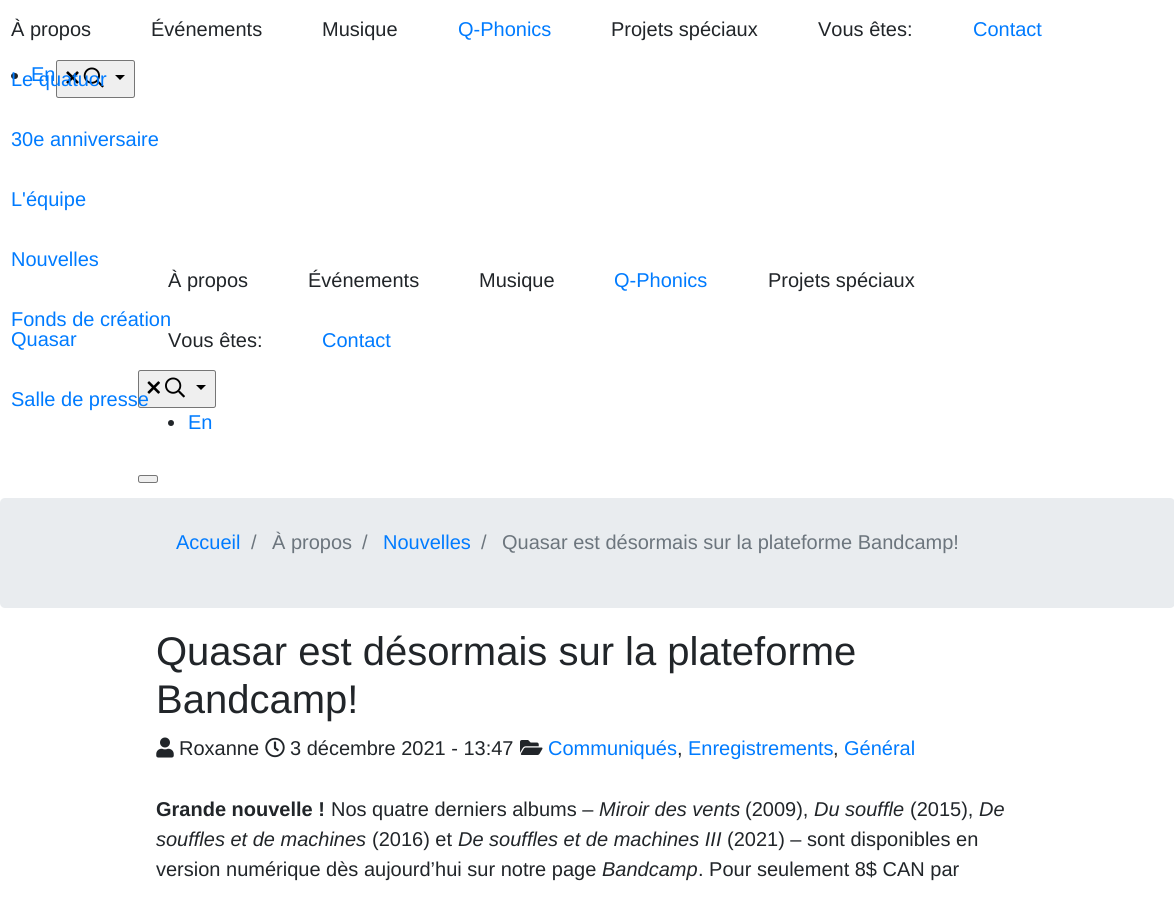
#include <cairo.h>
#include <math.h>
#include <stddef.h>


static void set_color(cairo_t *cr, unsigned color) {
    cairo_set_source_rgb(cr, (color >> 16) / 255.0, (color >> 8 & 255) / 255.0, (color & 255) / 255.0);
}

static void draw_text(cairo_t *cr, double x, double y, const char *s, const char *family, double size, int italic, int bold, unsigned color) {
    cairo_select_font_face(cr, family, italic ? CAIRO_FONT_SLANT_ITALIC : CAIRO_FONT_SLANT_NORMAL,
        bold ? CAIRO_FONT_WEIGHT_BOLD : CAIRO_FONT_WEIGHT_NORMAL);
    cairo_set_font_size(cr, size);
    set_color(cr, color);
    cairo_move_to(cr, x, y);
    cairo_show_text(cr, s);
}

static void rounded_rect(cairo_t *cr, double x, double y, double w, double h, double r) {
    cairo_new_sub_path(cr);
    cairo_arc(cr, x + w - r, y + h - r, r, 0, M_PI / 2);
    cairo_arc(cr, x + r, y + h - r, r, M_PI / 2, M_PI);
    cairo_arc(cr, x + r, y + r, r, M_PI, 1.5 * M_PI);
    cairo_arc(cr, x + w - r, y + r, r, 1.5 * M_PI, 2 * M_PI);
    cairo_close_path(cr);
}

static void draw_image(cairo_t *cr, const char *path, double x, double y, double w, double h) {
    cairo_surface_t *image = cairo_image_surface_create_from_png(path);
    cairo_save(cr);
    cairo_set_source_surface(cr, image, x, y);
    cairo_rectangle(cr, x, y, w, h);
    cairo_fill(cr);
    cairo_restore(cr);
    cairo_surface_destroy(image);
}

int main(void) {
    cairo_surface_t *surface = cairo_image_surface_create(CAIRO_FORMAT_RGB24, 1174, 902);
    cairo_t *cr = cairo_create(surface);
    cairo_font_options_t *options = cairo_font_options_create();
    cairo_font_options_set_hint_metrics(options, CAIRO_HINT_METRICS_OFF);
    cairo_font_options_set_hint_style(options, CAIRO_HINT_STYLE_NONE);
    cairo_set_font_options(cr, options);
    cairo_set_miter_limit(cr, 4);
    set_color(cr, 0xFFFFFF);
    cairo_paint(cr);
    draw_text(cr, 11, 36, "À propos", "Liberation Sans", 20, 0, 0, 0x212529);
    rounded_rect(cr, 11, 73, 7, 6, 3);
    cairo_fill(cr);
    draw_text(cr, 31, 81, "En", "Liberation Sans", 20, 0, 0, 0x007BFF);
    set_color(cr, 0xEFEFEF);
    rounded_rect(cr, 56.5, 60.5, 78, 37, 2);
    cairo_fill_preserve(cr);
    set_color(cr, 0x767676);
    cairo_set_line_width(cr, 1);
    cairo_stroke(cr);
    draw_image(cr, "assets/img1.png", 66, 71, 13, 13);
    draw_image(cr, "assets/img2.png", 83, 67, 21, 21);
    draw_text(cr, 11, 86, "Le quatuor", "Liberation Sans", 20, 0, 0, 0x007BFF);
    draw_text(cr, 11, 146, "30e anniversaire", "Liberation Sans", 20, 0, 0, 0x007BFF);
    draw_text(cr, 11, 206, "L'équipe", "Liberation Sans", 20, 0, 0, 0x007BFF);
    draw_text(cr, 11, 266, "Nouvelles", "Liberation Sans", 20, 0, 0, 0x007BFF);
    draw_text(cr, 11, 326, "Fonds de création", "Liberation Sans", 20, 0, 0, 0x007BFF);
    draw_text(cr, 11, 346, "Quasar", "Liberation Sans", 20, 0, 0, 0x007BFF);
    set_color(cr, 0xEFEFEF);
    rounded_rect(cr, 138.5, 370.5, 77, 37, 2);
    cairo_fill_preserve(cr);
    set_color(cr, 0x767676);
    cairo_stroke(cr);
    draw_image(cr, "assets/img3.png", 147, 381, 13, 13);
    draw_text(cr, 11, 406, "Salle de presse", "Liberation Sans", 20, 0, 0, 0x007BFF);
    draw_text(cr, 151, 36, "Événements", "Liberation Sans", 20, 0, 0, 0x212529);
    draw_text(cr, 322, 36, "Musique", "Liberation Sans", 20, 0, 0, 0x212529);
    draw_text(cr, 458, 36, "Q-Phonics", "Liberation Sans", 20, 0, 0, 0x007BFF);
    draw_text(cr, 611, 36, "Projets spéciaux", "Liberation Sans", 20, 0, 0, 0x212529);
    draw_text(cr, 818, 36, "Vous êtes:", "Liberation Sans", 20, 0, 0, 0x212529);
    draw_text(cr, 973, 36, "Contact", "Liberation Sans", 20, 0, 0, 0x007BFF);
    set_color(cr, 0x000000);
    cairo_new_path(cr);
    cairo_move_to(cr, 115, 75);
    cairo_line_to(cr, 125, 75);
    cairo_line_to(cr, 120, 80);
    cairo_close_path(cr);
    cairo_fill(cr);
    draw_text(cr, 168, 287, "À propos", "Liberation Sans", 20, 0, 0, 0x212529);
    draw_text(cr, 308, 287, "Événements", "Liberation Sans", 20, 0, 0, 0x212529);
    draw_text(cr, 479, 287, "Musique", "Liberation Sans", 20, 0, 0, 0x212529);
    draw_text(cr, 614, 287, "Q-Phonics", "Liberation Sans", 20, 0, 0, 0x007BFF);
    draw_text(cr, 768, 287, "Projets spéciaux", "Liberation Sans", 20, 0, 0, 0x212529);
    draw_text(cr, 168, 347, "Vous êtes:", "Liberation Sans", 20, 0, 0, 0x212529);
    draw_text(cr, 322, 347, "Contact", "Liberation Sans", 20, 0, 0, 0x007BFF);
    draw_image(cr, "assets/img4.png", 165, 377, 20, 21);
    set_color(cr, 0x000000);
    cairo_new_path(cr);
    cairo_move_to(cr, 196, 385);
    cairo_line_to(cr, 206, 385);
    cairo_line_to(cr, 201, 390);
    cairo_close_path(cr);
    cairo_fill(cr);
    set_color(cr, 0x212529);
    cairo_arc(cr, 171, 423, 3, 0, 2 * M_PI);
    cairo_fill(cr);
    draw_text(cr, 188, 429, "En", "Liberation Sans", 20, 0, 0, 0x007BFF);
    set_color(cr, 0xEFEFEF);
    rounded_rect(cr, 138.5, 475.5, 19, 7, 2);
    cairo_fill_preserve(cr);
    set_color(cr, 0x767676);
    cairo_stroke(cr);
    set_color(cr, 0xE9ECEF);
    rounded_rect(cr, 0, 498, 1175, 110, 5);
    cairo_fill(cr);
    draw_text(cr, 176, 549, "Accueil", "Liberation Sans", 20, 0, 0, 0x007BFF);
    draw_text(cr, 251, 549, "/", "Liberation Sans", 20, 0, 0, 0x6C757D);
    draw_text(cr, 272, 549, "À propos", "Liberation Sans", 20, 0, 0, 0x6C757D);
    draw_text(cr, 362, 549, "/", "Liberation Sans", 20, 0, 0, 0x6C757D);
    draw_text(cr, 383, 549, "Nouvelles", "Liberation Sans", 20, 0, 0, 0x007BFF);
    draw_text(cr, 481, 549, "/", "Liberation Sans", 20, 0, 0, 0x6C757D);
    draw_text(cr, 502, 549, "Quasar est désormais sur la plateforme Bandcamp!", "Liberation Sans", 20, 0, 0, 0x6C757D);
    draw_text(cr, 156, 665, "Quasar est désormais sur la plateforme", "Liberation Sans", 40, 0, 0, 0x212529);
    draw_text(cr, 156, 713, "Bandcamp!", "Liberation Sans", 40, 0, 0, 0x212529);
    draw_image(cr, "assets/img5.png", 156, 737, 18, 21);
    draw_text(cr, 179, 755, "Roxanne", "Liberation Sans", 20, 0, 0, 0x212529);
    draw_image(cr, "assets/img6.png", 265, 737, 20, 21);
    draw_text(cr, 290, 755, "3 décembre 2021 - 13:47", "Liberation Sans", 20, 0, 0, 0x212529);
    draw_image(cr, "assets/img7.png", 520, 740, 23, 15);
    draw_text(cr, 548, 755, "Communiqués", "Liberation Sans", 20, 0, 0, 0x007BFF);
    draw_text(cr, 677, 755, ",", "Liberation Sans", 20, 0, 0, 0x212529);
    draw_text(cr, 688, 755, "Enregistrements", "Liberation Sans", 20, 0, 0, 0x007BFF);
    draw_text(cr, 833, 755, ",", "Liberation Sans", 20, 0, 0, 0x212529);
    draw_text(cr, 844, 755, "Général", "Liberation Sans", 20, 0, 0, 0x007BFF);
    draw_text(cr, 156, 816, "Grande nouvelle !", "Liberation Sans", 20, 0, 1, 0x212529);
    draw_text(cr, 331, 816, "Nos quatre derniers albums –", "Liberation Sans", 20, 0, 0, 0x212529);
    draw_text(cr, 599, 816, "Miroir des vents", "Liberation Sans", 20, 1, 0, 0x212529);
    draw_text(cr, 745, 816, "(2009),", "Liberation Sans", 20, 0, 0, 0x212529);
    draw_text(cr, 814, 816, "Du souffle", "Liberation Sans", 20, 1, 0, 0x212529);
    draw_text(cr, 910, 816, "(2015),", "Liberation Sans", 20, 0, 0, 0x212529);
    draw_text(cr, 979, 816, "De", "Liberation Sans", 20, 1, 0, 0x212529);
    draw_text(cr, 156, 846, "souffles et de machines", "Liberation Sans", 20, 1, 0, 0x212529);
    draw_text(cr, 372, 846, "(2016) et", "Liberation Sans", 20, 0, 0, 0x212529);
    draw_text(cr, 458, 846, "De souffles et de machines III", "Liberation Sans", 20, 1, 0, 0x212529);
    draw_text(cr, 727, 846, "(2021) – sont disponibles en", "Liberation Sans", 20, 0, 0, 0x212529);
    draw_text(cr, 156, 876, "version numérique dès aujourd’hui sur notre page", "Liberation Sans", 20, 0, 0, 0x212529);
    draw_text(cr, 602, 876, "Bandcamp", "Liberation Sans", 20, 1, 0, 0x212529);
    draw_text(cr, 698, 876, ". Pour seulement 8$ CAN par", "Liberation Sans", 20, 0, 0, 0x212529);
    cairo_surface_write_to_png(surface, "output.png");
    cairo_font_options_destroy(options);
    cairo_destroy(cr);
    cairo_surface_destroy(surface);
    return 0;
}
